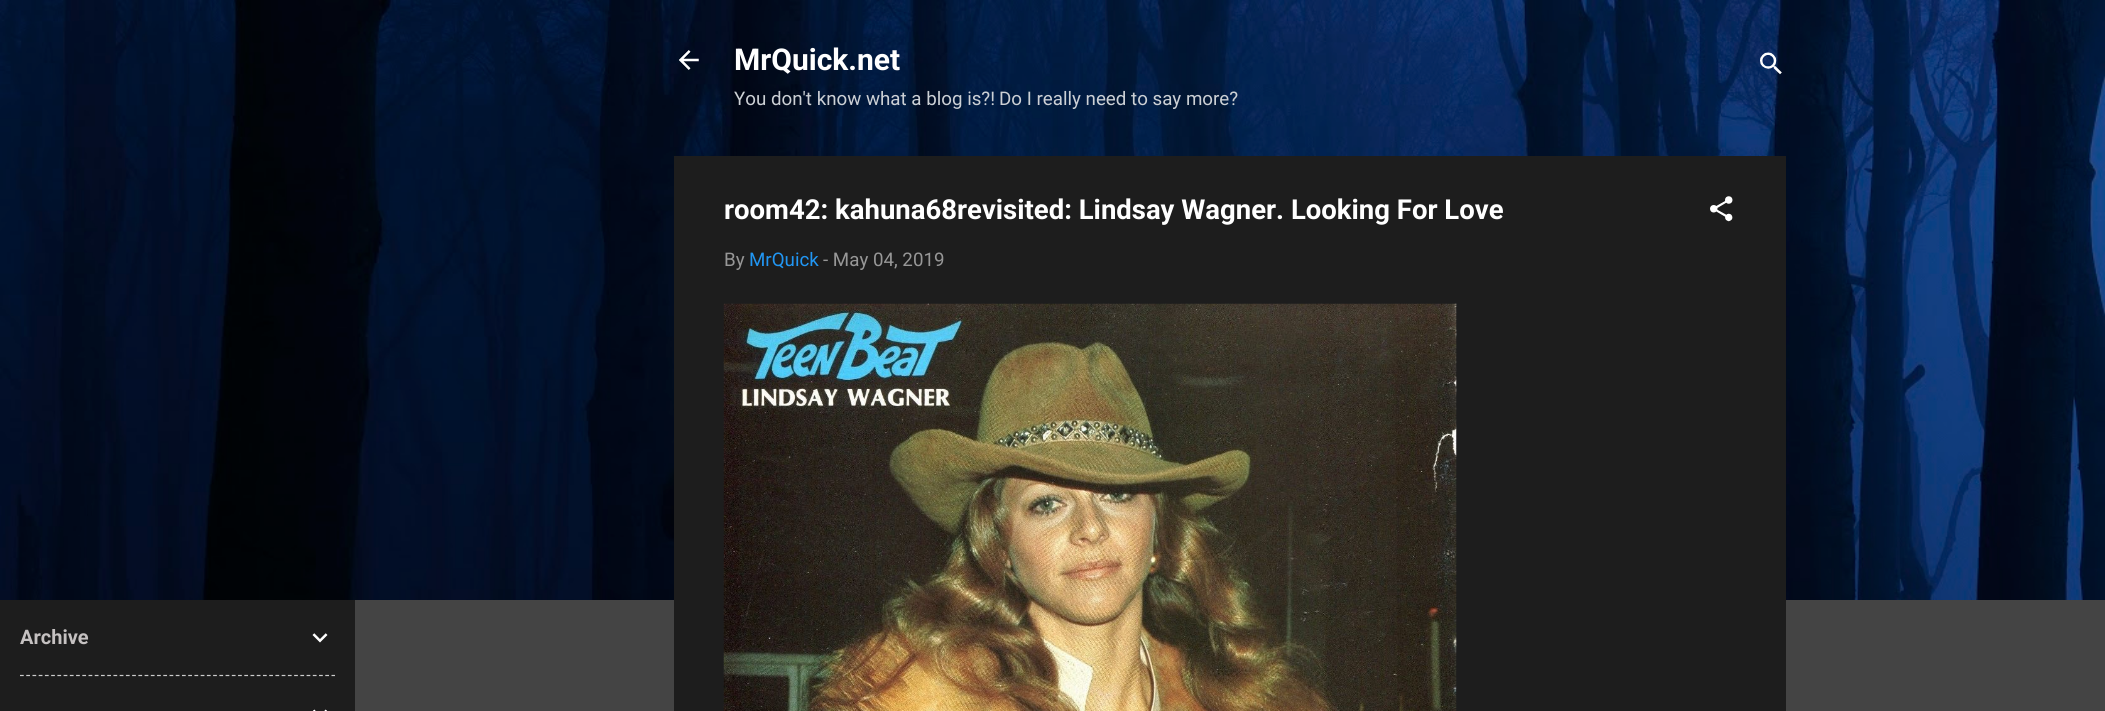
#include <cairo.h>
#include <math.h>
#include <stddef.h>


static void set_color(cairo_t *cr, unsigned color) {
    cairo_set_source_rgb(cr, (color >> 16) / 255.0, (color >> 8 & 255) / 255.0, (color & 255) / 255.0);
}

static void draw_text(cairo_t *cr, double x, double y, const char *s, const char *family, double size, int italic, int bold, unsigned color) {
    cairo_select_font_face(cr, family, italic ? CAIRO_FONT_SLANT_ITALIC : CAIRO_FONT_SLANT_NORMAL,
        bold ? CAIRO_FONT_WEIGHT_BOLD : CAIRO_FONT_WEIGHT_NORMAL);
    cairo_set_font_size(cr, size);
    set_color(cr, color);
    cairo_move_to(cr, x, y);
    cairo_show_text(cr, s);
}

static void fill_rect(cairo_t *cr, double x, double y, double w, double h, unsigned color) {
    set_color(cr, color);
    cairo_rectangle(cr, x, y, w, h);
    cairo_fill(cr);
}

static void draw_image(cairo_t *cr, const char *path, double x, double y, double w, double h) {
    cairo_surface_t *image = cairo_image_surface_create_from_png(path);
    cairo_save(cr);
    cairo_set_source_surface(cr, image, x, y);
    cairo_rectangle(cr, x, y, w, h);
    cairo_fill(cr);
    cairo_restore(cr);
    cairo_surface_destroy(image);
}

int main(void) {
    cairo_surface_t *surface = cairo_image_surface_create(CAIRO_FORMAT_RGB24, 2105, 711);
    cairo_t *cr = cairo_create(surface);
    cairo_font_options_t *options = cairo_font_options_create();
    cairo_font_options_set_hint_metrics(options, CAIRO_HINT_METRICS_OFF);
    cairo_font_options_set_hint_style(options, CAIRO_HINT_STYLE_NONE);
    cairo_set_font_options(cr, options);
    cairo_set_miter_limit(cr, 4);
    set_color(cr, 0x444444);
    cairo_paint(cr);
    draw_image(cr, "assets/img1.png", 0, 0, 2105, 600);
    draw_image(cr, "assets/img2.png", 679, 50, 20, 20);
    draw_text(cr, 734, 70, "MrQuick.net", "Roboto", 30, 0, 1, 0xFFFFFF);
    draw_text(cr, 734, 105, "You don't know what a blog is?!", "Roboto", 18.75, 0, 0, 0xCCD0D5);
    draw_text(cr, 999, 105, "Do I really need to say more?", "Roboto", 18.75, 0, 0, 0xCCD0D5);
    draw_image(cr, "assets/img3.png", 1760, 52, 22, 23);
    fill_rect(cr, 674, 156, 1112, 555, 0x1D1D1D);
    draw_text(cr, 724, 219, "room42: kahuna68revisited: Lindsay Wagner. Looking For Love", "Roboto", 27.5, 0, 1, 0xFFFFFF);
    draw_image(cr, "assets/img4.png", 1710, 196, 23, 26);
    draw_text(cr, 724, 266, "By", "Roboto", 18.75, 0, 0, 0x979797);
    draw_text(cr, 749, 266, "MrQuick", "Roboto", 18.75, 0, 0, 0x2196F3);
    draw_text(cr, 823, 266, "- May 04, 2019", "Roboto", 18.75, 0, 0, 0x979797);
    draw_image(cr, "assets/img5.png", 723, 303, 734, 408);
    fill_rect(cr, 0, 600, 355, 111, 0x1D1D1D);
    draw_text(cr, 20, 644, "Archive", "Roboto", 20, 0, 1, 0xC5C1C1);
    draw_image(cr, "assets/img6.png", 312, 633, 16, 10);
    cairo_new_path(cr);
    cairo_move_to(cr, 20, 675.5);
    cairo_line_to(cr, 335, 675.5);
    set_color(cr, 0xCCCCCC);
    cairo_set_line_width(cr, 1.2);
    cairo_set_dash(cr, (double[]){3.75, 2.48}, 2, 0);
    cairo_stroke(cr);
    draw_image(cr, "assets/img7.png", 313, 709, 14, 2);
    cairo_surface_write_to_png(surface, "output.png");
    cairo_font_options_destroy(options);
    cairo_destroy(cr);
    cairo_surface_destroy(surface);
    return 0;
}
